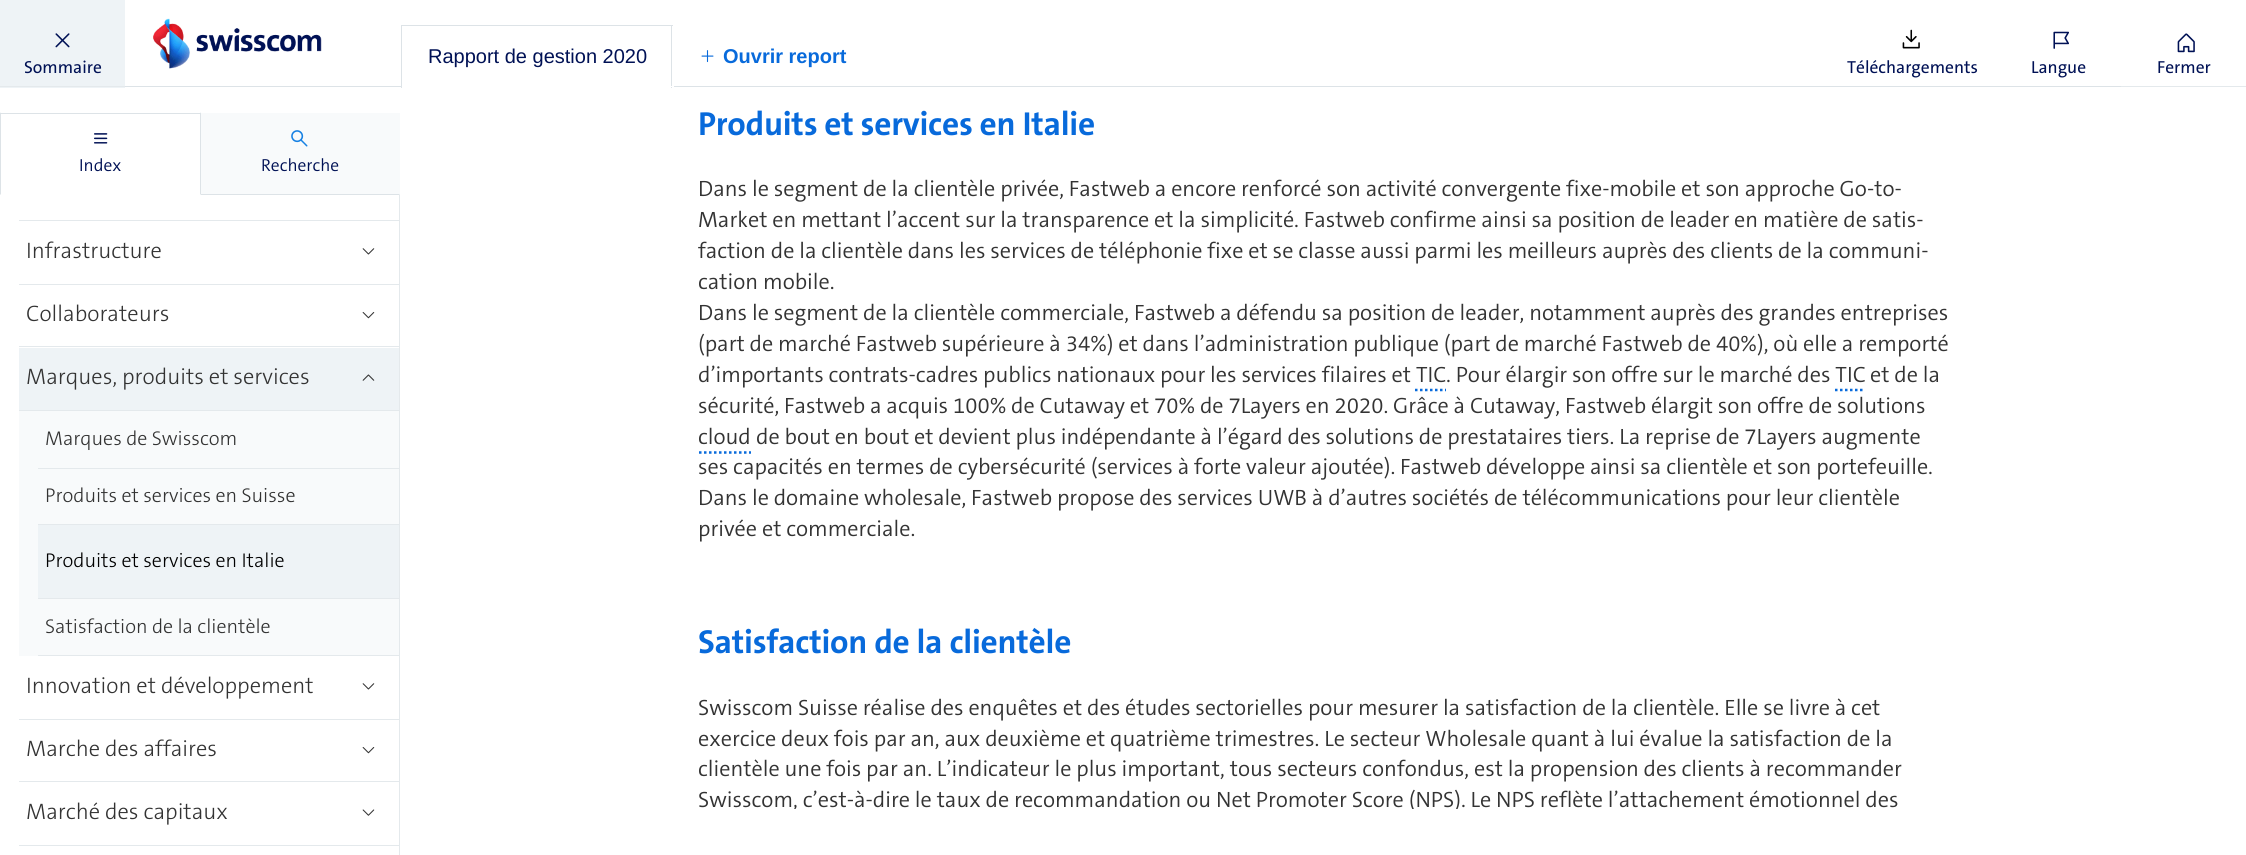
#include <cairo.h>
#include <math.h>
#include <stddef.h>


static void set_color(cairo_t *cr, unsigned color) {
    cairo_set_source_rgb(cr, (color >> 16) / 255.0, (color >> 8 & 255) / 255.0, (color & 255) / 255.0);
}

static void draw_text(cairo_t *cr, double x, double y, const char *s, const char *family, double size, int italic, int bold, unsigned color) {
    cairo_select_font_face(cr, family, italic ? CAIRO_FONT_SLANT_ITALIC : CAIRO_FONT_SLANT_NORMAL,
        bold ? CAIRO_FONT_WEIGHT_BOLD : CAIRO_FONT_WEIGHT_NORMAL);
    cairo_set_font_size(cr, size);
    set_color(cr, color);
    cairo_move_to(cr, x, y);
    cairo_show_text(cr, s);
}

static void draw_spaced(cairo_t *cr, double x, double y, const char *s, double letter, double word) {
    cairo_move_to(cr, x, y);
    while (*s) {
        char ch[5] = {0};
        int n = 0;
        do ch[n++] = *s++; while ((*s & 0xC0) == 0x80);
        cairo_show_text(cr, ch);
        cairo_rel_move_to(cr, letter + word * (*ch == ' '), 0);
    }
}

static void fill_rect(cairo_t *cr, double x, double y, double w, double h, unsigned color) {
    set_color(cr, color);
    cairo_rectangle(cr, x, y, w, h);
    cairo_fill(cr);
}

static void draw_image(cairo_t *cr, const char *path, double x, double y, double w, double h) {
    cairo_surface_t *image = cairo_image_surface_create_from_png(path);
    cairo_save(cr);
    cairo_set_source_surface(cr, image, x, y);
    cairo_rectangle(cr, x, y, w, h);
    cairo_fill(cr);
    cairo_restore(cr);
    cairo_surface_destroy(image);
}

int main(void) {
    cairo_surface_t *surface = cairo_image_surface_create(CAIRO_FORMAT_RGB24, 2246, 855);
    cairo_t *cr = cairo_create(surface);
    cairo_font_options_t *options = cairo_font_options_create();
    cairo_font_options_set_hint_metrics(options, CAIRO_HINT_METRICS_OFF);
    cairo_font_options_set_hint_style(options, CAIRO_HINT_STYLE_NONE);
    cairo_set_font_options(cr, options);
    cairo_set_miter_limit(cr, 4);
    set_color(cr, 0xFFFFFF);
    cairo_paint(cr);
    fill_rect(cr, 125, 86, 1996, 1, 0xDDE3E7);
    fill_rect(cr, 0, 0, 125, 88, 0xEEF3F6);
    fill_rect(cr, 0, 86, 125, 1, 0xE4E9EC);
    draw_image(cr, "assets/img1.png", 55, 33, 15, 15);
    draw_text(cr, 24, 73, "Sommaire", "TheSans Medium", 17.5, 0, 0, 0x001155);
    draw_image(cr, "assets/img2.png", 153, 18, 169, 51);
    fill_rect(cr, 402, 86, 271, 1, 0xFFFFFF);
    fill_rect(cr, 401, 25, 272, 1, 0xDDE3E7);
    fill_rect(cr, 671, 25, 1, 63, 0xDDE3E7);
    fill_rect(cr, 401, 86, 272, 1, 0xFFFFFF);
    fill_rect(cr, 401, 25, 1, 63, 0xDDE3E7);
    draw_text(cr, 428, 63, "Rapport de gestion 2020", "Liberation Sans", 20, 0, 0, 0x001155);
    fill_rect(cr, 674, 86, 199, 1, 0xFFFFFF);
    fill_rect(cr, 673, 86, 200, 1, 0xDDE3E7);
    fill_rect(cr, 673, 86, 1, 2, 0xFFFFFF);
    draw_image(cr, "assets/img3.png", 701, 50, 13, 13);
    draw_text(cr, 723, 63, "Ouvrir report", "Liberation Sans", 20, 0, 1, 0x086ADB);
    draw_image(cr, "assets/img4.png", 1902, 29, 18, 20);
    draw_text(cr, 1847, 73, "Téléchargements", "TheSans Medium", 17.5, 0, 0, 0x001155);
    draw_image(cr, "assets/img5.png", 2053, 31, 16, 18);
    draw_text(cr, 2031, 73, "Langue", "TheSans Medium", 17.5, 0, 0, 0x001155);
    fill_rect(cr, 2121, 86, 125, 1, 0xE4E9EC);
    draw_image(cr, "assets/img6.png", 2177, 33, 18, 20);
    draw_text(cr, 2157, 73, "Fermer", "TheSans Medium", 17.5, 0, 0, 0x001155);
    fill_rect(cr, 0, 113, 201, 1, 0xDDE3E7);
    cairo_new_path(cr);
    cairo_move_to(cr, 201, 112);
    cairo_line_to(cr, 201, 195);
    cairo_line_to(cr, 200, 194);
    cairo_line_to(cr, 200, 114);
    cairo_close_path(cr);
    cairo_fill(cr);
    cairo_new_path(cr);
    cairo_move_to(cr, 0, 195);
    cairo_line_to(cr, 0, 112);
    cairo_line_to(cr, 1, 114);
    cairo_line_to(cr, 1, 194);
    cairo_close_path(cr);
    cairo_fill(cr);
    draw_image(cr, "assets/img7.png", 94, 133, 14, 11);
    draw_text(cr, 79, 171, "Index", "TheSans Light", 17.5, 0, 0, 0x001155);
    fill_rect(cr, 201, 113, 199, 82, 0xF8FAFB);
    set_color(cr, 0xDDE3E7);
    cairo_new_path(cr);
    cairo_move_to(cr, 400, 195);
    cairo_line_to(cr, 201, 195);
    cairo_line_to(cr, 201, 194);
    cairo_line_to(cr, 399, 194);
    cairo_close_path(cr);
    cairo_fill(cr);
    draw_image(cr, "assets/img8.png", 291, 130, 17, 17);
    draw_text(cr, 261, 171, "Recherche", "TheSans Light", 17.5, 0, 0, 0x001155);
    fill_rect(cr, 399, 195, 1, 660, 0xE4E9EC);
    fill_rect(cr, 19, 220, 380, 1, 0xE4E9EC);
    fill_rect(cr, 19, 284, 380, 1, 0xE4E9EC);
    draw_text(cr, 26, 258, "Infrastructure", "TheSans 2 Light", 22.5, 0, 0, 0x333333);
    draw_image(cr, "assets/img9.png", 362, 248, 13, 7);
    fill_rect(cr, 19, 346, 380, 1, 0xE4E9EC);
    draw_text(cr, 26, 321, "Collaborateurs", "TheSans 2 Light", 22.5, 0, 0, 0x333333);
    draw_image(cr, "assets/img10.png", 362, 312, 13, 7);
    fill_rect(cr, 19, 348, 380, 62, 0xEEF3F6);
    fill_rect(cr, 19, 410, 380, 1, 0xE4E9EC);
    draw_text(cr, 26, 384, "Marques, produits et services", "TheSans 2 Light", 22.5, 0, 0, 0x333333);
    draw_image(cr, "assets/img11.png", 362, 374, 13, 7);
    fill_rect(cr, 19, 411, 380, 245, 0xF8FAFB);
    fill_rect(cr, 38, 468, 361, 1, 0xE4E9EC);
    draw_text(cr, 45, 445, "Marques de Swisscom", "TheSans 2 Light", 20, 0, 0, 0x333333);
    fill_rect(cr, 38, 524, 361, 1, 0xE4E9EC);
    draw_text(cr, 45, 502, "Produits et services en Suisse", "TheSans 2 Light", 20, 0, 0, 0x333333);
    fill_rect(cr, 38, 525, 361, 73, 0xEEF3F6);
    fill_rect(cr, 38, 598, 361, 1, 0xE4E9EC);
    draw_text(cr, 45, 567, "Produits et services en Italie", "TheSans 2 Light", 20, 0, 0, 0x000000);
    fill_rect(cr, 38, 655, 361, 1, 0xE4E9EC);
    draw_text(cr, 45, 633, "Satisfaction de la clientèle", "TheSans 2 Light", 20, 0, 0, 0x333333);
    fill_rect(cr, 19, 719, 380, 1, 0xE4E9EC);
    draw_text(cr, 26, 693, "Innovation et développement", "TheSans 2 Light", 22.5, 0, 0, 0x333333);
    draw_image(cr, "assets/img9.png", 362, 683, 13, 7);
    fill_rect(cr, 19, 781, 380, 1, 0xE4E9EC);
    draw_text(cr, 26, 756, "Marche des affaires", "TheSans 2 Light", 22.5, 0, 0, 0x333333);
    draw_image(cr, "assets/img10.png", 362, 747, 13, 7);
    fill_rect(cr, 19, 845, 380, 1, 0xE4E9EC);
    draw_text(cr, 26, 819, "Marché des capitaux", "TheSans 2 Light", 22.5, 0, 0, 0x333333);
    draw_image(cr, "assets/img12.png", 362, 809, 13, 7);
    cairo_select_font_face(cr, "TheSans", CAIRO_FONT_SLANT_NORMAL, CAIRO_FONT_WEIGHT_BOLD);
    cairo_set_font_size(cr, 33.4);
    set_color(cr, 0x086ADB);
    draw_spaced(cr, 698, 135, "Produits et services en Italie", -0.25, 0);
    draw_text(cr, 698, 196, "Dans le segment de la clientèle privée, Fastweb a encore renforcé son activité convergente fixe-mobile et son approche Go-to-", "TheSans Light", 22.23, 0, 0, 0x333333);
    draw_text(cr, 698, 227, "Market en mettant l’accent sur la transparence et la simplicité. Fastweb confirme ainsi sa position de leader en matière de satis-", "TheSans Light", 22.23, 0, 0, 0x333333);
    draw_text(cr, 698, 258, "faction de la clientèle dans les services de téléphonie fixe et se classe aussi parmi les meilleurs auprès des clients de la communi-", "TheSans Light", 22.23, 0, 0, 0x333333);
    draw_text(cr, 698, 289, "cation mobile.", "TheSans Light", 22.23, 0, 0, 0x333333);
    draw_text(cr, 698, 320, "Dans le segment de la clientèle commerciale, Fastweb a défendu sa position de leader, notamment auprès des grandes entreprises", "TheSans Light", 22.23, 0, 0, 0x333333);
    draw_text(cr, 698, 351, "(part de marché Fastweb supérieure à 34%) et dans l’administration publique (part de marché Fastweb de 40%), où elle a remporté", "TheSans Light", 22.23, 0, 0, 0x333333);
    draw_text(cr, 698, 382, "d’importants contrats-cadres publics nationaux pour les services filaires et TIC", "TheSans Light", 22.23, 0, 0, 0x333333);
    draw_text(cr, 1446, 382, ". Pour élargir son offre sur le marché des TIC", "TheSans Light", 22.23, 0, 0, 0x333333);
    draw_text(cr, 1870, 382, "et de la", "TheSans Light", 22.23, 0, 0, 0x333333);
    cairo_new_path(cr);
    cairo_move_to(cr, 1415, 390);
    cairo_line_to(cr, 1446, 390);
    set_color(cr, 0x086ADB);
    cairo_set_line_width(cr, 2.5);
    cairo_set_dash(cr, (double[]){2.5, 2.5}, 2, 0);
    cairo_stroke(cr);
    cairo_new_path(cr);
    cairo_move_to(cr, 1835, 390);
    cairo_line_to(cr, 1865, 390);
    cairo_stroke(cr);
    draw_text(cr, 698, 413, "sécurité, Fastweb a acquis 100% de Cutaway et 70% de 7Layers en 2020. Grâce à Cutaway, Fastweb élargit son offre de solutions", "TheSans Light", 22.23, 0, 0, 0x333333);
    draw_text(cr, 698, 444, "cloud", "TheSans Light", 22.23, 0, 0, 0x333333);
    cairo_new_path(cr);
    cairo_move_to(cr, 699, 452.5);
    cairo_line_to(cr, 751, 452.5);
    set_color(cr, 0x086ADB);
    cairo_stroke(cr);
    draw_text(cr, 756, 444, "de bout en bout et devient plus indépendante à l’égard des solutions de prestataires tiers. La reprise de 7Layers augmente", "TheSans Light", 22.23, 0, 0, 0x333333);
    draw_text(cr, 698, 474, "ses capacités en termes de cybersécurité (services à forte valeur ajoutée). Fastweb développe ainsi sa clientèle et son portefeuille.", "TheSans Light", 22.23, 0, 0, 0x333333);
    draw_text(cr, 698, 505, "Dans le domaine wholesale, Fastweb propose des services UWB à d’autres sociétés de télécommunications pour leur clientèle", "TheSans Light", 22.23, 0, 0, 0x333333);
    draw_text(cr, 698, 536, "privée et commerciale.", "TheSans Light", 22.23, 0, 0, 0x333333);
    cairo_select_font_face(cr, "TheSans", CAIRO_FONT_SLANT_NORMAL, CAIRO_FONT_WEIGHT_BOLD);
    cairo_set_font_size(cr, 33.4);
    set_color(cr, 0x086ADB);
    draw_spaced(cr, 698, 653, "Satisfaction de la clientèle", -0.25, 0);
    draw_text(cr, 698, 715, "Swisscom Suisse réalise des enquêtes et des études sectorielles pour mesurer la satisfaction de la clientèle. Elle se livre à cet", "TheSans Light", 22.23, 0, 0, 0x333333);
    draw_text(cr, 698, 746, "exercice deux fois par an, aux deuxième et quatrième trimestres. Le secteur Wholesale quant à lui évalue la satisfaction de la", "TheSans Light", 22.23, 0, 0, 0x333333);
    draw_text(cr, 698, 776, "clientèle une fois par an. L’indicateur le plus important, tous secteurs confondus, est la propension des clients à recommander", "TheSans Light", 22.23, 0, 0, 0x333333);
    cairo_save(cr);
    cairo_rectangle(cr, 400, 41, 1846, 768);
    cairo_clip(cr);
    draw_text(cr, 698, 807, "Swisscom, c’est-à-dire le taux de recommandation ou Net Promoter Score (NPS). Le NPS reflète l’attachement émotionnel des", "TheSans Light", 22.23, 0, 0, 0x333333);
    cairo_restore(cr);
    cairo_surface_write_to_png(surface, "output.png");
    cairo_font_options_destroy(options);
    cairo_destroy(cr);
    cairo_surface_destroy(surface);
    return 0;
}
